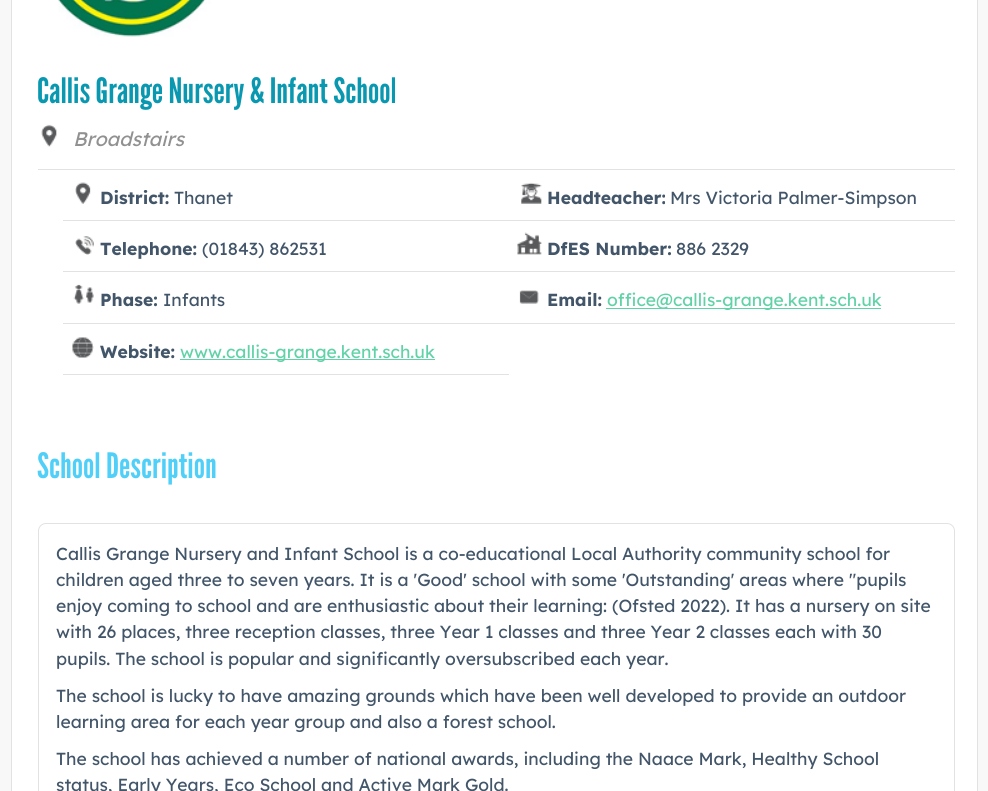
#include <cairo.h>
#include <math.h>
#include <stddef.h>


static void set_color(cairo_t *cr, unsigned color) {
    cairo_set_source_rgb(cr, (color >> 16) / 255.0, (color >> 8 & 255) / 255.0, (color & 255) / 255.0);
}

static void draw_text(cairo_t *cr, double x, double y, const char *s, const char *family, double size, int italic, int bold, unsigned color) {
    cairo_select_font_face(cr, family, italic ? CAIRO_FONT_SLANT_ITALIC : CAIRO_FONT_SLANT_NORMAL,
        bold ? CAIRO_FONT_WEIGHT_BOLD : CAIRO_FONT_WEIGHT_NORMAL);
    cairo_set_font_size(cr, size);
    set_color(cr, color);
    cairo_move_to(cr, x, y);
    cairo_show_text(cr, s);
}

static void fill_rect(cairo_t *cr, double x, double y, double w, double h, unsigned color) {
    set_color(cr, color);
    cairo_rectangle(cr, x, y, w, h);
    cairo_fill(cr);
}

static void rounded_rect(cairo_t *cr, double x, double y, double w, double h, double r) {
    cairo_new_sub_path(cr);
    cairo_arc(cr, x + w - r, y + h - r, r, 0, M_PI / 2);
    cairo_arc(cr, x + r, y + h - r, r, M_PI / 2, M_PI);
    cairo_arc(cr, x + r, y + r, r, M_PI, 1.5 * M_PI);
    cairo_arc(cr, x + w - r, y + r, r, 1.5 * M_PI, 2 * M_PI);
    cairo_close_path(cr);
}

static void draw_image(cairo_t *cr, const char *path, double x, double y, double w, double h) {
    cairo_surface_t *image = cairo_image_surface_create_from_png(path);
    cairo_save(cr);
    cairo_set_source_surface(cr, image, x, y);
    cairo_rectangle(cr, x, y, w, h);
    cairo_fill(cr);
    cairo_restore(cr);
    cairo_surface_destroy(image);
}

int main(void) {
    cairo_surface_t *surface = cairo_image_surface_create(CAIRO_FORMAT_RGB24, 988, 791);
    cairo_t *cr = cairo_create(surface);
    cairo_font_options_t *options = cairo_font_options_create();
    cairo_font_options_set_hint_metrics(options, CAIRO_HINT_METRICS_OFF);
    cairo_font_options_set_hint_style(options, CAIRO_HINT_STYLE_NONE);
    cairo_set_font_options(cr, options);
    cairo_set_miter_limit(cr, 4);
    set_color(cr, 0xF8F8F8);
    cairo_paint(cr);
    set_color(cr, 0xFFFFFF);
    cairo_rectangle(cr, 11.5, -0.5, 966, 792);
    cairo_fill_preserve(cr);
    set_color(cr, 0xE2E2E2);
    cairo_set_line_width(cr, 1);
    cairo_stroke(cr);
    draw_image(cr, "assets/img1.png", 58, 0, 153, 37);
    draw_text(cr, 37, 103, "Callis Grange Nursery & Infant School", "League Gothic", 35, 0, 0, 0x0998B0);
    draw_image(cr, "assets/img2.png", 41, 124, 16, 23);
    draw_text(cr, 73, 146, "Broadstairs", "Lexend", 19.75, 1, 0, 0x919191);
    fill_rect(cr, 38, 169, 917, 1, 0xE2E2E2);
    fill_rect(cr, 63, 220, 892, 1, 0xE2E2E2);
    draw_image(cr, "assets/img3.png", 75, 182, 16, 22);
    draw_text(cr, 100, 204, "District:", "Lexend", 17.5, 0, 1, 0x425569);
    draw_text(cr, 174, 204, "Thanet", "Lexend", 17.5, 0, 0, 0x425569);
    draw_image(cr, "assets/img4.png", 521, 182, 21, 22);
    draw_text(cr, 547, 204, "Headteacher:", "Lexend", 17.5, 0, 1, 0x425569);
    draw_text(cr, 670, 204, "Mrs Victoria Palmer-Simpson", "Lexend", 17.5, 0, 0, 0x425569);
    fill_rect(cr, 63, 271, 892, 1, 0xE2E2E2);
    draw_image(cr, "assets/img5.png", 75, 236, 19, 19);
    draw_text(cr, 100, 255, "Telephone:", "Lexend", 17.5, 0, 1, 0x425569);
    draw_text(cr, 202, 255, "(01843) 862531", "Lexend", 17.5, 0, 0, 0x425569);
    draw_image(cr, "assets/img6.png", 517, 232, 25, 23);
    draw_text(cr, 547, 255, "DfES Number:", "Lexend", 17.5, 0, 1, 0x425569);
    draw_text(cr, 676, 255, "886 2329", "Lexend", 17.5, 0, 0, 0x425569);
    fill_rect(cr, 63, 323, 892, 1, 0xE2E2E2);
    draw_image(cr, "assets/img7.png", 73, 284, 21, 20);
    draw_text(cr, 100, 306, "Phase:", "Lexend", 17.5, 0, 1, 0x425569);
    draw_text(cr, 163, 306, "Infants", "Lexend", 17.5, 0, 0, 0x425569);
    draw_image(cr, "assets/img8.png", 519, 290, 20, 14);
    draw_text(cr, 547, 306, "Email:", "Lexend", 17.5, 0, 1, 0x425569);
    fill_rect(cr, 606, 308, 275, 1, 0x61D2A8);
    draw_text(cr, 607, 306, "office@callis-grange.kent.sch.uk", "Lexend", 17.5, 0, 0, 0x61D2A8);
    fill_rect(cr, 63, 374, 446, 1, 0xE2E2E2);
    draw_image(cr, "assets/img9.png", 72, 337, 22, 21);
    draw_text(cr, 100, 358, "Website:", "Lexend", 17.5, 0, 1, 0x425569);
    fill_rect(cr, 180, 359, 255, 1, 0x61D2A8);
    draw_text(cr, 180, 358, "www.callis-grange.kent.sch.uk", "Lexend", 17.5, 0, 0, 0x61D2A8);
    draw_text(cr, 37, 478, "School Description", "League Gothic", 35, 0, 0, 0x50D0F8);
    rounded_rect(cr, 38.5, 523.5, 916, 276, 7.5);
    set_color(cr, 0xE2E2E2);
    cairo_stroke(cr);
    draw_text(cr, 56, 560, "Callis Grange Nursery and Infant School is a co-educational Local Authority community school for", "Lexend", 17.5, 0, 0, 0x425569);
    draw_text(cr, 56, 586, "children aged three to seven years. It is a 'Good' school with some 'Outstanding' areas where \"pupils", "Lexend", 17.5, 0, 0, 0x425569);
    draw_text(cr, 56, 612, "enjoy coming to school and are enthusiastic about their learning: (Ofsted 2022). It has a nursery on site", "Lexend", 17.5, 0, 0, 0x425569);
    draw_text(cr, 56, 638, "with 26 places, three reception classes, three Year 1 classes and three Year 2 classes each with 30", "Lexend", 17.5, 0, 0, 0x425569);
    draw_text(cr, 56, 665, "pupils. The school is popular and significantly oversubscribed each year.", "Lexend", 17.5, 0, 0, 0x425569);
    draw_text(cr, 56, 702, "The school is lucky to have amazing grounds which have been well developed to provide an outdoor", "Lexend", 17.5, 0, 0, 0x425569);
    draw_text(cr, 56, 728, "learning area for each year group and also a forest school.", "Lexend", 17.5, 0, 0, 0x425569);
    draw_text(cr, 56, 765, "The school has achieved a number of national awards, including the Naace Mark, Healthy School", "Lexend", 17.5, 0, 0, 0x425569);
    draw_text(cr, 56, 791, "status, Early Years, Eco School and Active Mark Gold.", "Lexend", 17.5, 0, 0, 0x425569);
    cairo_surface_write_to_png(surface, "output.png");
    cairo_font_options_destroy(options);
    cairo_destroy(cr);
    cairo_surface_destroy(surface);
    return 0;
}
